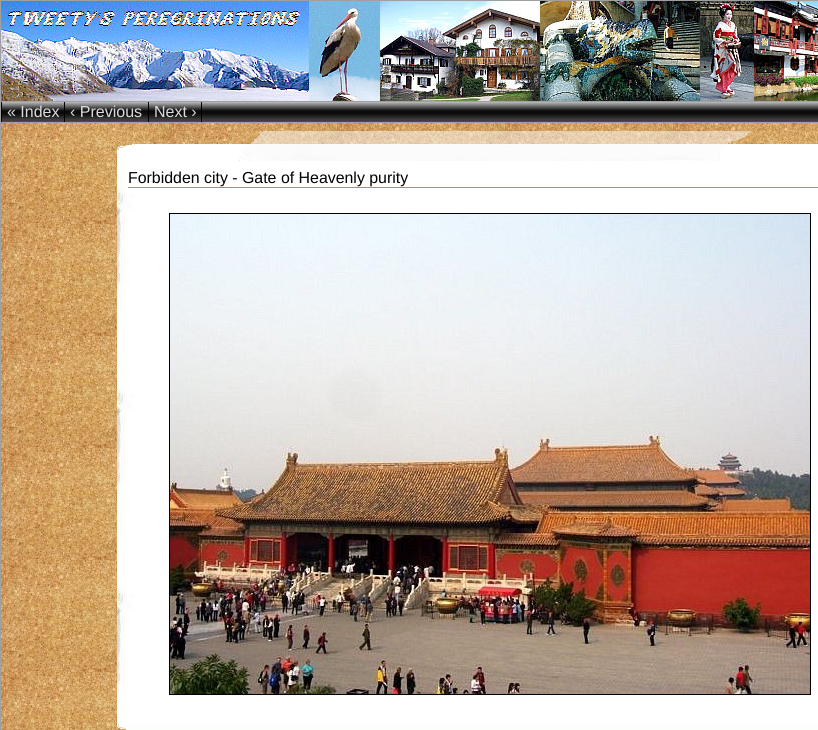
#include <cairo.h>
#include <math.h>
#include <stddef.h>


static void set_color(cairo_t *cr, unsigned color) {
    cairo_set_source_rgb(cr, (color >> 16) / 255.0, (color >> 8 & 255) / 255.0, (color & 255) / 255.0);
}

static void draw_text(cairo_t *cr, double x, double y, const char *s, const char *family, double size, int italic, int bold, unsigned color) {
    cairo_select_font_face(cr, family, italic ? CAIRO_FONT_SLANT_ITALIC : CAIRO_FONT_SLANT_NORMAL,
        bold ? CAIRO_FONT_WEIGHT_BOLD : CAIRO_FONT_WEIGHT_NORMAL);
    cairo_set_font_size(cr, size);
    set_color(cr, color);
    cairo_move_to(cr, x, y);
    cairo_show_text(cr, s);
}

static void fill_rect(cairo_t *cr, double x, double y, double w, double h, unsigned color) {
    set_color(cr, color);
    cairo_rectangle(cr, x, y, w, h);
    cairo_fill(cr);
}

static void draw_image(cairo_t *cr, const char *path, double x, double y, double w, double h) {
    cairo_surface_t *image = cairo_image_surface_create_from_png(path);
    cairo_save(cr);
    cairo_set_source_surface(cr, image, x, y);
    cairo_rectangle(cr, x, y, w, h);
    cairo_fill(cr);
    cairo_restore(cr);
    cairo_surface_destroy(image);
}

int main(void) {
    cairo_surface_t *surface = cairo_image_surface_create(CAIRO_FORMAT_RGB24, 818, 730);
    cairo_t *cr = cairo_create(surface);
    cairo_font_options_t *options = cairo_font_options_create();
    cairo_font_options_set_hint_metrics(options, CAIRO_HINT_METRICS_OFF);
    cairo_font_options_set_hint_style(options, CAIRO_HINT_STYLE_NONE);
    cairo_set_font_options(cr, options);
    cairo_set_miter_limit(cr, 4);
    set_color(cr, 0xFFFFFF);
    cairo_paint(cr);
    draw_image(cr, "assets/img1.png", 1, 123, 817, 607);
    fill_rect(cr, 0, 0, 1, 730, 0xA0A0A0);
    fill_rect(cr, 1, 0, 817, 1, 0xA0A0A0);
    draw_image(cr, "assets/img2.png", 1, 1, 817, 100);
    draw_image(cr, "assets/img3.png", 8, 11, 292, 15);
    fill_rect(cr, 1, 101, 817, 1, 0xA0A0A0);
    draw_image(cr, "assets/img4.png", 202, 102, 616, 20);
    fill_rect(cr, 64, 102, 1, 20, 0x000000);
    fill_rect(cr, 1, 102, 1, 20, 0x000000);
    draw_image(cr, "assets/img5.png", 2, 102, 62, 20);
    draw_text(cr, 7, 117, "« Index", "Liberation Sans", 16, 0, 0, 0xDCDCDC);
    fill_rect(cr, 148, 102, 1, 20, 0x000000);
    draw_image(cr, "assets/img6.png", 65, 102, 83, 20);
    draw_text(cr, 70, 117, "‹ Previous", "Liberation Sans", 16, 0, 0, 0xDCDCDC);
    fill_rect(cr, 201, 102, 1, 20, 0x000000);
    draw_image(cr, "assets/img7.png", 149, 102, 52, 20);
    draw_text(cr, 154, 117, "Next ›", "Liberation Sans", 16, 0, 0, 0xDCDCDC);
    fill_rect(cr, 1, 122, 817, 1, 0xA0A0A0);
    draw_image(cr, "assets/img8.png", 117, 131, 701, 30);
    draw_image(cr, "assets/img9.png", 117, 161, 701, 564);
    fill_rect(cr, 128, 187, 690, 1, 0xCD853F);
    draw_text(cr, 128, 183, "Forbidden city - Gate of Heavenly purity", "Liberation Sans", 15.9, 0, 0, 0x000000);
    cairo_rectangle(cr, 169.5, 213.5, 641, 481);
    cairo_set_line_width(cr, 1);
    cairo_stroke(cr);
    draw_image(cr, "assets/img10.png", 170, 214, 640, 480);
    draw_image(cr, "assets/img11.png", 117, 725, 701, 5);
    cairo_surface_write_to_png(surface, "output.png");
    cairo_font_options_destroy(options);
    cairo_destroy(cr);
    cairo_surface_destroy(surface);
    return 0;
}
